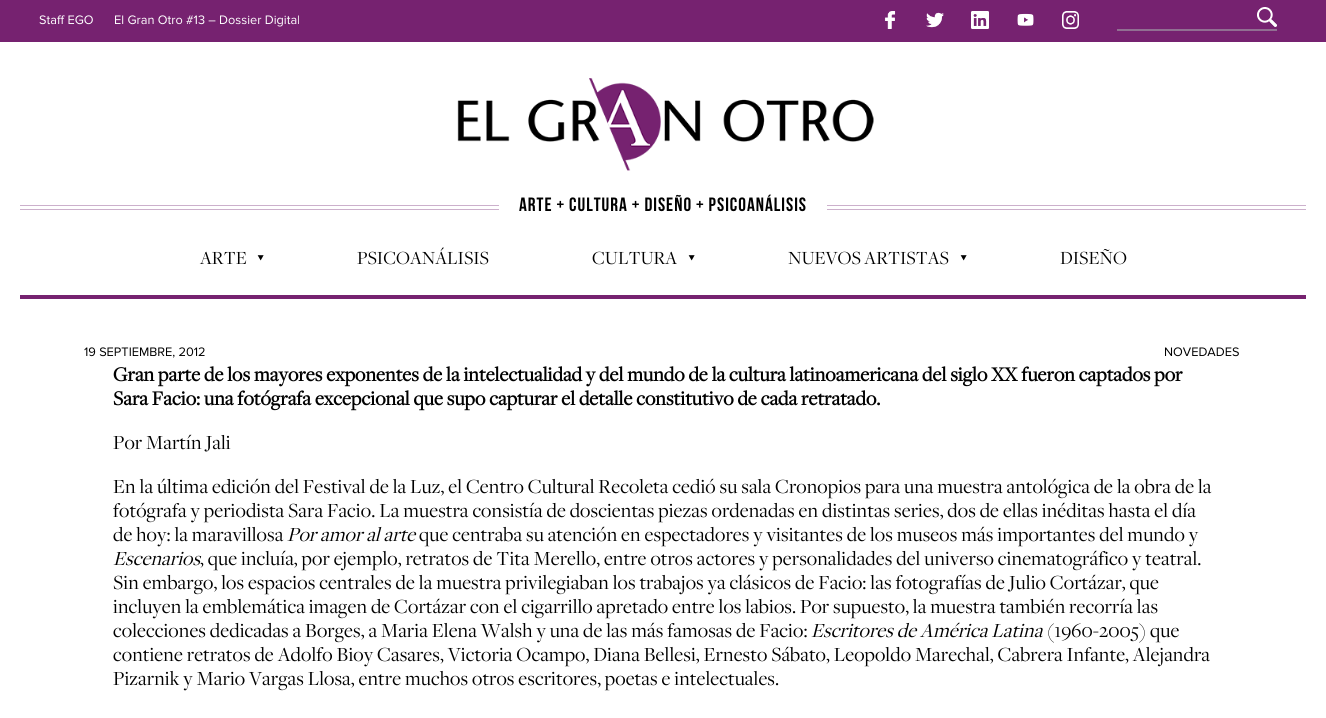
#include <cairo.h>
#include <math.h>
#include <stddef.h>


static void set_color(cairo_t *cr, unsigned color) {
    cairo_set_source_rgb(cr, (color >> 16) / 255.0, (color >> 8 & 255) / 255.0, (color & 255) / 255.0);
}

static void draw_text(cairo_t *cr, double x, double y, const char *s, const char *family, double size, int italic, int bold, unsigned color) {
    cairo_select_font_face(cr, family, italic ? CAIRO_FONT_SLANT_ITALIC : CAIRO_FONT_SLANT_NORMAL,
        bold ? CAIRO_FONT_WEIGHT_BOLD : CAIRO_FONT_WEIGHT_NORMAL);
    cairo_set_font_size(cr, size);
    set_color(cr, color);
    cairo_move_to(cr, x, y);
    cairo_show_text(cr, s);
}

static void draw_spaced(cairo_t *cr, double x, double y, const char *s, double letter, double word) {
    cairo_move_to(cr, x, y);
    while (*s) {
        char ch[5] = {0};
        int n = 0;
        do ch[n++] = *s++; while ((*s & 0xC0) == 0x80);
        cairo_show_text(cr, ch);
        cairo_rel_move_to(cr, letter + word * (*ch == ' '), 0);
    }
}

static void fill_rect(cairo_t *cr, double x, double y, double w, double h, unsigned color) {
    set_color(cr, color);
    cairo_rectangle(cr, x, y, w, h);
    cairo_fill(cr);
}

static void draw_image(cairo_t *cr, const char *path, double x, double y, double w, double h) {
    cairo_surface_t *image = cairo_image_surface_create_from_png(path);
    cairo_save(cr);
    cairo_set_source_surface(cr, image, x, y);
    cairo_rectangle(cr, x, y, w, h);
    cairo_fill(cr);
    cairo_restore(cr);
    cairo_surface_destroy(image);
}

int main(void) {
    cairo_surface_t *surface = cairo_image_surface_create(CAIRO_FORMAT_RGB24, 1326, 718);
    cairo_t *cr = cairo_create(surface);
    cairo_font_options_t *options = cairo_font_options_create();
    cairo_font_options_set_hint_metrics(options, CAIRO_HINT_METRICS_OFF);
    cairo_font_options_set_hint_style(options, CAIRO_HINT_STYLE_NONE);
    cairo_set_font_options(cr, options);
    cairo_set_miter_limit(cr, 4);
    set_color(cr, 0xFFFFFF);
    cairo_paint(cr);
    fill_rect(cr, 0, 0, 1326, 42, 0x762270);
    draw_text(cr, 39, 24, "Staff EGO", "Proxima Nova", 12.75, 0, 0, 0xFFFFFF);
    draw_text(cr, 114, 24, "El Gran Otro #13 – Dossier Digital", "Proxima Nova", 12.75, 0, 0, 0xFFFFFF);
    draw_image(cr, "assets/img1.png", 884, 11, 12, 18);
    draw_image(cr, "assets/img2.png", 926, 12, 18, 16);
    draw_image(cr, "assets/img3.png", 971, 11, 18, 18);
    draw_image(cr, "assets/img4.png", 1017, 13, 17, 13);
    draw_image(cr, "assets/img5.png", 1062, 11, 17, 18);
    draw_image(cr, "assets/img6.png", 1257, 7, 20, 20);
    fill_rect(cr, 1117, 29, 160, 2, 0x916F92);
    draw_image(cr, "assets/img7.png", 457, 78, 417, 93);
    fill_rect(cr, 20, 205, 479, 1, 0xCCB0CC);
    fill_rect(cr, 20, 209, 479, 1, 0xCCB0CC);
    cairo_select_font_face(cr, "Bebas Neue", CAIRO_FONT_SLANT_NORMAL, CAIRO_FONT_WEIGHT_BOLD);
    cairo_set_font_size(cr, 19.25);
    set_color(cr, 0x000000);
    draw_spaced(cr, 519, 211, "ARTE + CULTURA + DISEÑO + PSICOANÁLISIS", 1, 0);
    fill_rect(cr, 827, 205, 479, 1, 0xCCB0CC);
    fill_rect(cr, 827, 209, 479, 1, 0xCCB0CC);
    draw_text(cr, 200, 264, "ARTE", "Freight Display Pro", 19.25, 0, 0, 0x000000);
    draw_image(cr, "assets/img8.png", 257, 255, 7, 6);
    draw_text(cr, 357, 264, "PSICOANÁLISIS", "Freight Display Pro", 19.25, 0, 0, 0x000000);
    draw_text(cr, 592, 264, "CULTURA", "Freight Display Pro", 19.25, 0, 0, 0x000000);
    draw_image(cr, "assets/img8.png", 688, 255, 7, 6);
    draw_text(cr, 788, 264, "NUEVOS ARTISTAS", "Freight Display Pro", 19.25, 0, 0, 0x000000);
    draw_image(cr, "assets/img8.png", 960, 255, 7, 6);
    draw_text(cr, 1060, 264, "DISEÑO", "Freight Display Pro", 19.25, 0, 0, 0x000000);
    fill_rect(cr, 20, 295, 1286, 4, 0x762270);
    draw_text(cr, 84, 356, "19 SEPTIEMBRE, 2012", "Proxima Nova", 12.75, 0, 0, 0x000000);
    draw_text(cr, 1164, 356, "NOVEDADES", "Proxima Nova", 12.75, 0, 0, 0x000000);
    cairo_select_font_face(cr, "Freight Display Pro", CAIRO_FONT_SLANT_NORMAL, CAIRO_FONT_WEIGHT_BOLD);
    cairo_set_font_size(cr, 20.8);
    draw_spaced(cr, 113, 381, "Gran parte de los mayores exponentes de la intelectualidad y del mundo de la cultura latinoamericana del siglo XX fueron captados por", 0.1, 0);
    draw_spaced(cr, 113, 405, "Sara Facio: una fotógrafa excepcional que supo capturar el detalle constitutivo de cada retratado.", 0.1, 0);
    cairo_select_font_face(cr, "Freight Display Pro", CAIRO_FONT_SLANT_NORMAL, CAIRO_FONT_WEIGHT_NORMAL);
    draw_spaced(cr, 113, 449, "Por Martín Jali", 0.1, 0);
    draw_spaced(cr, 113, 493, "En la última edición del Festival de la Luz, el Centro Cultural Recoleta cedió su sala Cronopios para una muestra antológica de la obra de la", 0.1, 0);
    draw_spaced(cr, 113, 517, "fotógrafa y periodista Sara Facio. La muestra consistía de doscientas piezas ordenadas en distintas series, dos de ellas inéditas hasta el día", 0.1, 0);
    draw_spaced(cr, 113, 541, "de hoy: la maravillosa", 0.1, 0);
    cairo_select_font_face(cr, "Freight Display Pro", CAIRO_FONT_SLANT_ITALIC, CAIRO_FONT_WEIGHT_NORMAL);
    draw_spaced(cr, 287, 541, "Por amor al arte", 0.1, 0);
    cairo_select_font_face(cr, "Freight Display Pro", CAIRO_FONT_SLANT_NORMAL, CAIRO_FONT_WEIGHT_NORMAL);
    draw_spaced(cr, 419, 541, "que centraba su atención en espectadores y visitantes de los museos más importantes del mundo y", 0.1, 0);
    cairo_select_font_face(cr, "Freight Display Pro", CAIRO_FONT_SLANT_ITALIC, CAIRO_FONT_WEIGHT_NORMAL);
    draw_spaced(cr, 113, 565, "Escenarios", 0.1, 0);
    cairo_select_font_face(cr, "Freight Display Pro", CAIRO_FONT_SLANT_NORMAL, CAIRO_FONT_WEIGHT_NORMAL);
    draw_spaced(cr, 200, 565, ", que incluía, por ejemplo, retratos de Tita Merello, entre otros actores y personalidades del universo cinematográfico y teatral.", 0.1, 0);
    draw_spaced(cr, 113, 589, "Sin embargo, los espacios centrales de la muestra privilegiaban los trabajos ya clásicos de Facio: las fotografías de Julio Cortázar, que", 0.1, 0);
    draw_spaced(cr, 113, 613, "incluyen la emblemática imagen de Cortázar con el cigarrillo apretado entre los labios. Por supuesto, la muestra también recorría las", 0.1, 0);
    draw_spaced(cr, 113, 637, "colecciones dedicadas a Borges, a Maria Elena Walsh y una de las más famosas de Facio:", 0.1, 0);
    cairo_select_font_face(cr, "Freight Display Pro", CAIRO_FONT_SLANT_ITALIC, CAIRO_FONT_WEIGHT_NORMAL);
    draw_spaced(cr, 811, 637, "Escritores de América Latina", 0.1, 0);
    cairo_select_font_face(cr, "Freight Display Pro", CAIRO_FONT_SLANT_NORMAL, CAIRO_FONT_WEIGHT_NORMAL);
    draw_spaced(cr, 1047, 637, "(1960-2005) que", 0.1, 0);
    draw_spaced(cr, 113, 661, "contiene retratos de Adolfo Bioy Casares, Victoria Ocampo, Diana Bellesi, Ernesto Sábato, Leopoldo Marechal, Cabrera Infante, Alejandra", 0.1, 0);
    draw_spaced(cr, 113, 685, "Pizarnik y Mario Vargas Llosa, entre muchos otros escritores, poetas e intelectuales.", 0.1, 0);
    cairo_surface_write_to_png(surface, "output.png");
    cairo_font_options_destroy(options);
    cairo_destroy(cr);
    cairo_surface_destroy(surface);
    return 0;
}
